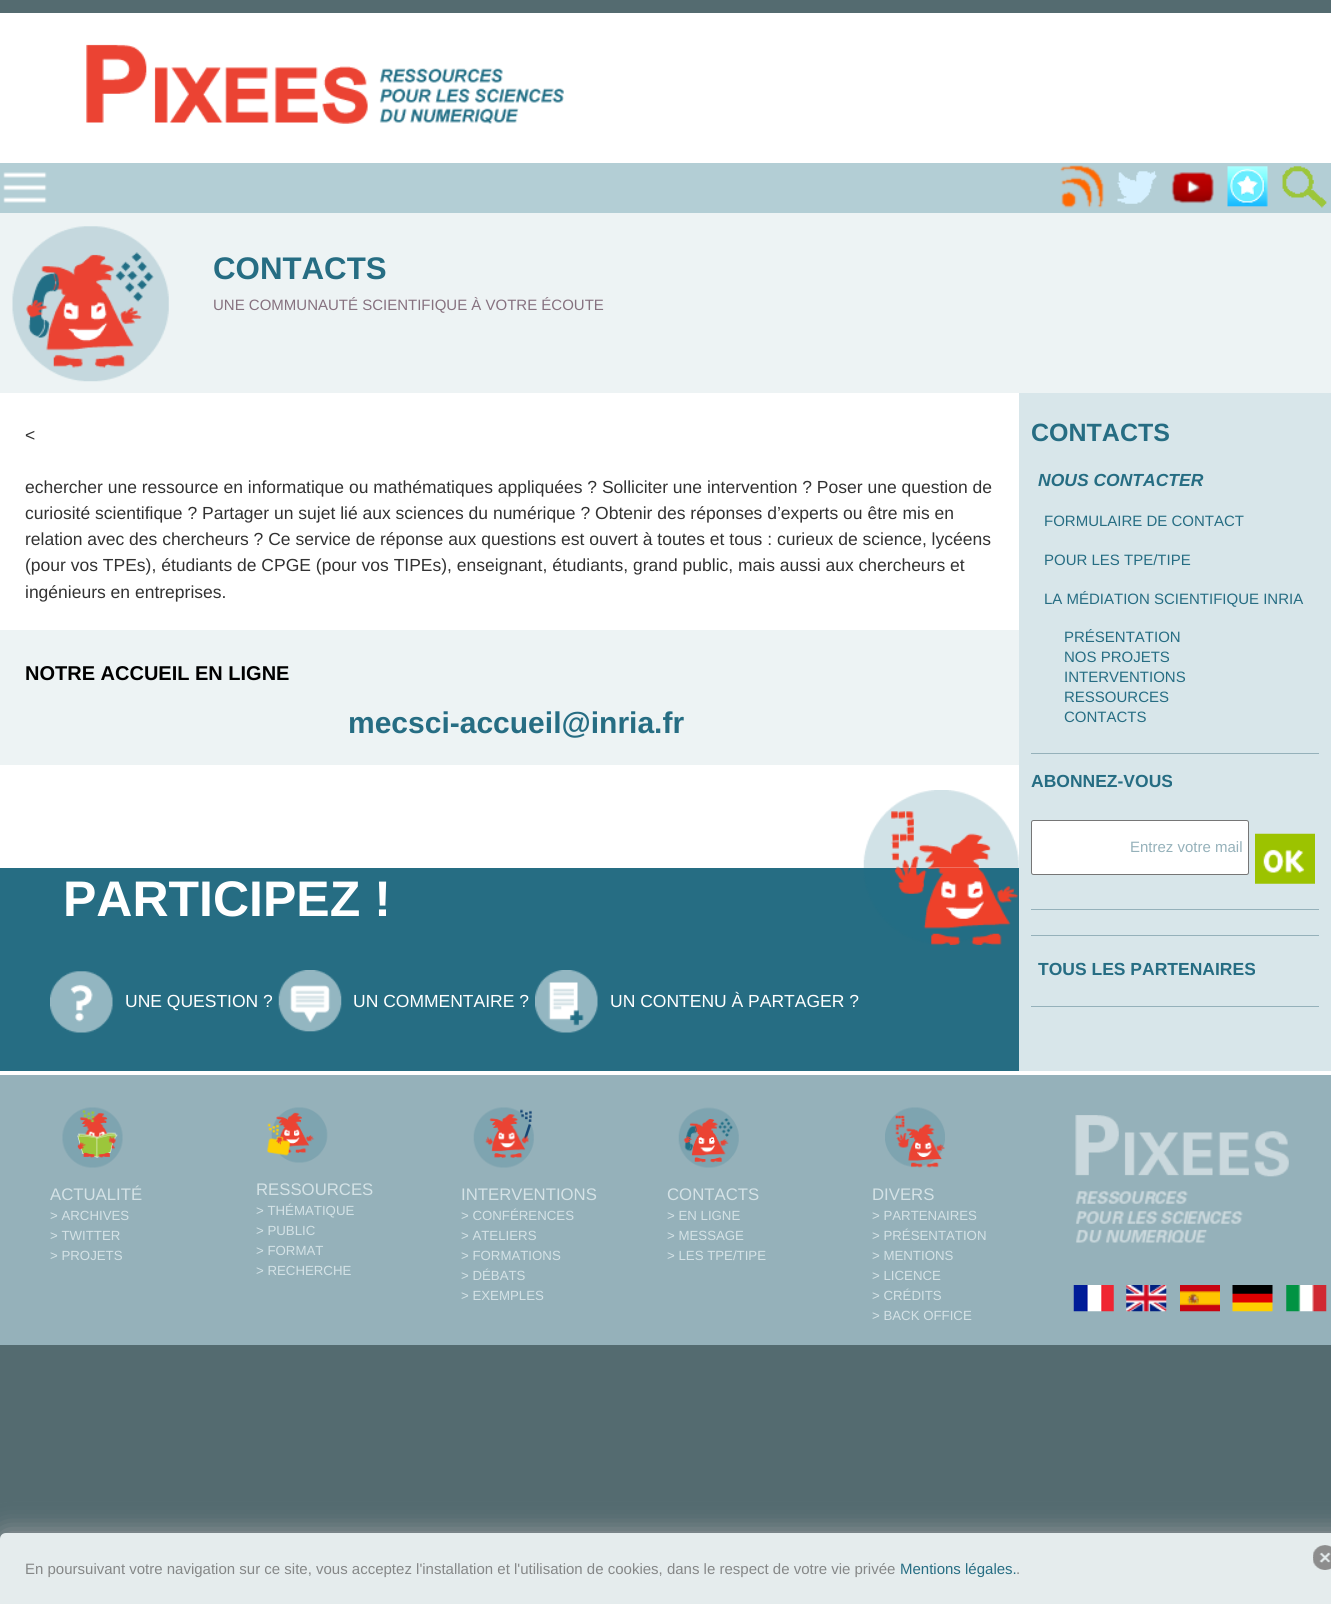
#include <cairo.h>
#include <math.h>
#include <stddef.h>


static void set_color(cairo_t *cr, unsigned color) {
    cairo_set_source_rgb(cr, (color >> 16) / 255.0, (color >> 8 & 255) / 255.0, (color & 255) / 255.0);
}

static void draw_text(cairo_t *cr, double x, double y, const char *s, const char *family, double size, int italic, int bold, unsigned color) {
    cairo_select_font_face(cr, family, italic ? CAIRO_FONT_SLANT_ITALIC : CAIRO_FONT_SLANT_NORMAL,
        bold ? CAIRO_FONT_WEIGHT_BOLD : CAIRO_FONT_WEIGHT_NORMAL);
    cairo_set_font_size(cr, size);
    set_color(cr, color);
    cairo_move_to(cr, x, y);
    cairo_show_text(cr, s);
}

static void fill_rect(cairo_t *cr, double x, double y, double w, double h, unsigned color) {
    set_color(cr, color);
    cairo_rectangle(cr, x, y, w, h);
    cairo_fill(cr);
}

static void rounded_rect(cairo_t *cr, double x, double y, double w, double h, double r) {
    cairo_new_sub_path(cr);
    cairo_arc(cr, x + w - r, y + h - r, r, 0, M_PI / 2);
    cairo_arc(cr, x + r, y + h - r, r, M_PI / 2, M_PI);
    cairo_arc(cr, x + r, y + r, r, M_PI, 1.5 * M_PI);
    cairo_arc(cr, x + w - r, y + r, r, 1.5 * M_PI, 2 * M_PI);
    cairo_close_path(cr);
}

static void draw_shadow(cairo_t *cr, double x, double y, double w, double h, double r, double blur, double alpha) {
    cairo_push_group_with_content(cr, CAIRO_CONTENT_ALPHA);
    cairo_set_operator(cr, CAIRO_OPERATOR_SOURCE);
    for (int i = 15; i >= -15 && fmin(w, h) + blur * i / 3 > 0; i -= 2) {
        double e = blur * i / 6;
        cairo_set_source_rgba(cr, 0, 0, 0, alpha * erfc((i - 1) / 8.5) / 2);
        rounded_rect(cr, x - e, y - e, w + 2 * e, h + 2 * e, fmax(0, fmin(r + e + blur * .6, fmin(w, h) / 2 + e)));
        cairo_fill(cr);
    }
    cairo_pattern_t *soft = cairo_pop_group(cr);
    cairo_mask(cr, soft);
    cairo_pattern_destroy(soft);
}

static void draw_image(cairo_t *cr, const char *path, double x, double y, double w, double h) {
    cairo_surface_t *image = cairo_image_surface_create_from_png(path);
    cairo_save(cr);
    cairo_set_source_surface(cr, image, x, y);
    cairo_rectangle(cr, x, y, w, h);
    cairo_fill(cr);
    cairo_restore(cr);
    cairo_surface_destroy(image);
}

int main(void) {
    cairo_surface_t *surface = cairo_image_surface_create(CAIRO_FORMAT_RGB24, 1331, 1604);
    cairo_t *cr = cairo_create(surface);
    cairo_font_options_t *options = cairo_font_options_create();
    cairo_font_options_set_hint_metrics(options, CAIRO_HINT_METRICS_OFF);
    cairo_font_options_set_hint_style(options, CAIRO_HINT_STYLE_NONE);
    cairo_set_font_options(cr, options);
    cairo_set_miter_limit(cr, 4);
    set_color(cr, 0x546B70);
    cairo_paint(cr);
    fill_rect(cr, 0, 13, 1331, 150, 0xFFFFFF);
    draw_image(cr, "assets/img1.png", 86, 44, 478, 80);
    fill_rect(cr, 0, 163, 1331, 50, 0xB3CED5);
    draw_image(cr, "assets/img2.png", 3, 172, 44, 31);
    draw_image(cr, "assets/img3.png", 1060, 165, 44, 43);
    draw_image(cr, "assets/img4.png", 1117, 171, 40, 33);
    draw_image(cr, "assets/img5.png", 1171, 172, 43, 32);
    draw_image(cr, "assets/img6.png", 1227, 166, 41, 41);
    draw_image(cr, "assets/img7.png", 1282, 166, 45, 42);
    fill_rect(cr, 0, 213, 1331, 180, 0xEDF3F4);
    draw_image(cr, "assets/img8.png", 12, 226, 157, 156);
    draw_text(cr, 213, 279, "CONTACTS", "Liberation Sans", 31.25, 0, 1, 0x266D83);
    draw_text(cr, 213, 310, "UNE COMMUNAUTÉ SCIENTIFIQUE À VOTRE ÉCOUTE", "Liberation Sans", 15, 0, 0, 0x86717F);
    fill_rect(cr, 0, 393, 1019, 475, 0xFFFFFF);
    draw_text(cr, 25, 441, "<", "Liberation Sans", 17.5, 0, 0, 0x323232);
    draw_text(cr, 25, 493, "echercher une ressource en informatique ou mathématiques appliquées ? Solliciter une intervention ? Poser une question de", "Liberation Sans", 17.5, 0, 0, 0x323232);
    draw_text(cr, 25, 519, "curiosité scientifique ? Partager un sujet lié aux sciences du numérique ? Obtenir des réponses d’experts ou être mis en", "Liberation Sans", 17.5, 0, 0, 0x323232);
    draw_text(cr, 25, 545, "relation avec des chercheurs ? Ce service de réponse aux questions est ouvert à toutes et tous : curieux de science, lycéens", "Liberation Sans", 17.5, 0, 0, 0x323232);
    draw_text(cr, 25, 571, "(pour vos TPEs), étudiants de CPGE (pour vos TIPEs), enseignant, étudiants, grand public, mais aussi aux chercheurs et", "Liberation Sans", 17.5, 0, 0, 0x323232);
    draw_text(cr, 25, 598, "ingénieurs en entreprises.", "Liberation Sans", 17.5, 0, 0, 0x323232);
    fill_rect(cr, 0, 630, 1019, 135, 0xEDF3F4);
    draw_text(cr, 25, 680, "NOTRE ACCUEIL EN LIGNE", "Liberation Sans", 20, 0, 1, 0x000000);
    draw_text(cr, 348, 733, "mecsci-accueil@inria.fr", "Liberation Sans", 30, 0, 1, 0x266D83);
    draw_image(cr, "assets/img9.png", 863, 790, 156, 78);
    fill_rect(cr, 0, 868, 1019, 203, 0x266D83);
    draw_text(cr, 63, 916, "PARTICIPEZ !", "Liberation Sans", 50, 0, 1, 0xFFFFFF);
    draw_image(cr, "assets/img10.png", 863, 867, 156, 78);
    draw_image(cr, "assets/img11.png", 50, 971, 63, 62);
    draw_text(cr, 125, 1007, "UNE QUESTION ?", "Liberation Sans", 17.5, 0, 0, 0xFFFFFF);
    draw_image(cr, "assets/img12.png", 278, 970, 64, 62);
    draw_text(cr, 353, 1007, "UN COMMENTAIRE ?", "Liberation Sans", 17.5, 0, 0, 0xFFFFFF);
    draw_image(cr, "assets/img13.png", 535, 970, 63, 63);
    draw_text(cr, 610, 1007, "UN CONTENU À PARTAGER ?", "Liberation Sans", 17.5, 0, 0, 0xFFFFFF);
    fill_rect(cr, 1019, 393, 312, 678, 0xD8E6EA);
    draw_text(cr, 1031, 441, "CONTACTS", "Liberation Sans", 25, 0, 1, 0x266D83);
    draw_text(cr, 1038, 486, "NOUS CONTACTER", "Liberation Sans", 17.5, 1, 1, 0x266D83);
    draw_text(cr, 1044, 526, "FORMULAIRE DE CONTACT", "Liberation Sans", 15, 0, 0, 0x266D83);
    draw_text(cr, 1044, 565, "POUR LES TPE/TIPE", "Liberation Sans", 15, 0, 0, 0x266D83);
    draw_text(cr, 1044, 604, "LA MÉDIATION SCIENTIFIQUE INRIA", "Liberation Sans", 15, 0, 0, 0x266D83);
    draw_text(cr, 1064, 642, "PRÉSENTATION", "Liberation Sans", 15, 0, 0, 0x266D83);
    draw_text(cr, 1064, 662, "NOS PROJETS", "Liberation Sans", 15, 0, 0, 0x266D83);
    draw_text(cr, 1064, 682, "INTERVENTIONS", "Liberation Sans", 15, 0, 0, 0x266D83);
    draw_text(cr, 1064, 702, "RESSOURCES", "Liberation Sans", 15, 0, 0, 0x266D83);
    draw_text(cr, 1064, 722, "CONTACTS", "Liberation Sans", 15, 0, 0, 0x266D83);
    fill_rect(cr, 1031, 753, 288, 1, 0x95B1BA);
    draw_text(cr, 1031, 787, "ABONNEZ-VOUS", "Liberation Sans", 17.5, 0, 1, 0x266D83);
    set_color(cr, 0xFFFFFF);
    rounded_rect(cr, 1031.5, 820.5, 217, 54, 2);
    cairo_fill_preserve(cr);
    set_color(cr, 0x767676);
    cairo_set_line_width(cr, 1);
    cairo_stroke(cr);
    draw_text(cr, 1130, 852, "Entrez votre mail", "Liberation Sans", 15, 0, 0, 0x95B1BA);
    draw_image(cr, "assets/img14.png", 1255, 833, 60, 51);
    fill_rect(cr, 1031, 909, 288, 1, 0x95B1BA);
    fill_rect(cr, 1031, 935, 288, 1, 0x95B1BA);
    draw_text(cr, 1038, 975, "TOUS LES PARTENAIRES", "Liberation Sans", 17.5, 0, 1, 0x266D83);
    fill_rect(cr, 1031, 1006, 288, 1, 0x95B1BA);
    fill_rect(cr, 0, 1071, 1331, 4, 0xFFFFFF);
    fill_rect(cr, 0, 1075, 1331, 270, 0x95B1BA);
    draw_image(cr, "assets/img15.png", 62, 1107, 61, 61);
    draw_text(cr, 50, 1200, "ACTUALITÉ", "Liberation Sans", 16.75, 0, 0, 0xD4E2E6);
    draw_text(cr, 50, 1220, "> ARCHIVES", "Liberation Sans", 13.25, 0, 0, 0xD4E2E6);
    draw_text(cr, 50, 1240, "> TWITTER", "Liberation Sans", 13.25, 0, 0, 0xD4E2E6);
    draw_text(cr, 50, 1260, "> PROJETS", "Liberation Sans", 13.25, 0, 0, 0xD4E2E6);
    draw_image(cr, "assets/img16.png", 267, 1107, 61, 56);
    draw_text(cr, 256, 1195, "RESSOURCES", "Liberation Sans", 16.75, 0, 0, 0xD4E2E6);
    draw_text(cr, 256, 1215, "> THÉMATIQUE", "Liberation Sans", 13.25, 0, 0, 0xD4E2E6);
    draw_text(cr, 256, 1235, "> PUBLIC", "Liberation Sans", 13.25, 0, 0, 0xD4E2E6);
    draw_text(cr, 256, 1255, "> FORMAT", "Liberation Sans", 13.25, 0, 0, 0xD4E2E6);
    draw_text(cr, 256, 1275, "> RECHERCHE", "Liberation Sans", 13.25, 0, 0, 0xD4E2E6);
    draw_image(cr, "assets/img17.png", 473, 1107, 61, 61);
    draw_text(cr, 461, 1200, "INTERVENTIONS", "Liberation Sans", 16.75, 0, 0, 0xD4E2E6);
    draw_text(cr, 461, 1220, "> CONFÉRENCES", "Liberation Sans", 13.25, 0, 0, 0xD4E2E6);
    draw_text(cr, 461, 1240, "> ATELIERS", "Liberation Sans", 13.25, 0, 0, 0xD4E2E6);
    draw_text(cr, 461, 1260, "> FORMATIONS", "Liberation Sans", 13.25, 0, 0, 0xD4E2E6);
    draw_text(cr, 461, 1280, "> DÉBATS", "Liberation Sans", 13.25, 0, 0, 0xD4E2E6);
    draw_text(cr, 461, 1300, "> EXEMPLES", "Liberation Sans", 13.25, 0, 0, 0xD4E2E6);
    draw_image(cr, "assets/img18.png", 678, 1107, 61, 61);
    draw_text(cr, 667, 1200, "CONTACTS", "Liberation Sans", 16.75, 0, 0, 0xD4E2E6);
    draw_text(cr, 667, 1220, "> EN LIGNE", "Liberation Sans", 13.25, 0, 0, 0xD4E2E6);
    draw_text(cr, 667, 1240, "> MESSAGE", "Liberation Sans", 13.25, 0, 0, 0xD4E2E6);
    draw_text(cr, 667, 1260, "> LES TPE/TIPE", "Liberation Sans", 13.25, 0, 0, 0xD4E2E6);
    draw_image(cr, "assets/img19.png", 885, 1107, 60, 61);
    draw_text(cr, 872, 1200, "DIVERS", "Liberation Sans", 16.75, 0, 0, 0xD4E2E6);
    draw_text(cr, 872, 1220, "> PARTENAIRES", "Liberation Sans", 13.25, 0, 0, 0xD4E2E6);
    draw_text(cr, 872, 1240, "> PRÉSENTATION", "Liberation Sans", 13.25, 0, 0, 0xD4E2E6);
    draw_text(cr, 872, 1260, "> MENTIONS", "Liberation Sans", 13.25, 0, 0, 0xD4E2E6);
    draw_text(cr, 872, 1280, "> LICENCE", "Liberation Sans", 13.25, 0, 0, 0xD4E2E6);
    draw_text(cr, 872, 1300, "> CRÉDITS", "Liberation Sans", 13.25, 0, 0, 0xD4E2E6);
    draw_text(cr, 872, 1320, "> BACK OFFICE", "Liberation Sans", 13.25, 0, 0, 0xD4E2E6);
    draw_image(cr, "assets/img20.png", 1075, 1115, 214, 128);
    draw_image(cr, "assets/img21.png", 1073, 1285, 41, 27);
    draw_image(cr, "assets/img22.png", 1126, 1285, 41, 27);
    draw_image(cr, "assets/img23.png", 1180, 1285, 40, 27);
    draw_image(cr, "assets/img24.png", 1232, 1285, 41, 27);
    draw_image(cr, "assets/img25.png", 1286, 1285, 41, 27);
    set_color(cr, 0x9D9E9F);
    draw_shadow(cr, 0, 1533, 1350, 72, 6, 12.5, 1);
    set_color(cr, 0xE5ECED);
    cairo_new_path(cr);
    cairo_move_to(cr, 6, 1533);
    cairo_line_to(cr, 1331, 1533);
    cairo_curve_to(cr, 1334.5, 1533, 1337, 1535.5, 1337, 1539);
    cairo_line_to(cr, 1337, 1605);
    cairo_line_to(cr, 0, 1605);
    cairo_line_to(cr, 0, 1539);
    cairo_curve_to(cr, 0, 1535.5, 2.5, 1533, 6, 1533);
    cairo_close_path(cr);
    cairo_fill(cr);
    draw_text(cr, 25, 1574, "En poursuivant votre navigation sur ce site, vous acceptez l'installation et l'utilisation de cookies, dans le respect de votre vie privée", "Liberation Sans", 15, 0, 0, 0x858787);
    draw_text(cr, 900, 1574, "Mentions légales.", "Liberation Sans", 15, 0, 0, 0x266D83);
    draw_text(cr, 1016, 1574, ".", "Liberation Sans", 15, 0, 0, 0x858787);
    draw_image(cr, "assets/img26.png", 1313, 1545, 18, 25);
    cairo_surface_write_to_png(surface, "output.png");
    cairo_font_options_destroy(options);
    cairo_destroy(cr);
    cairo_surface_destroy(surface);
    return 0;
}
